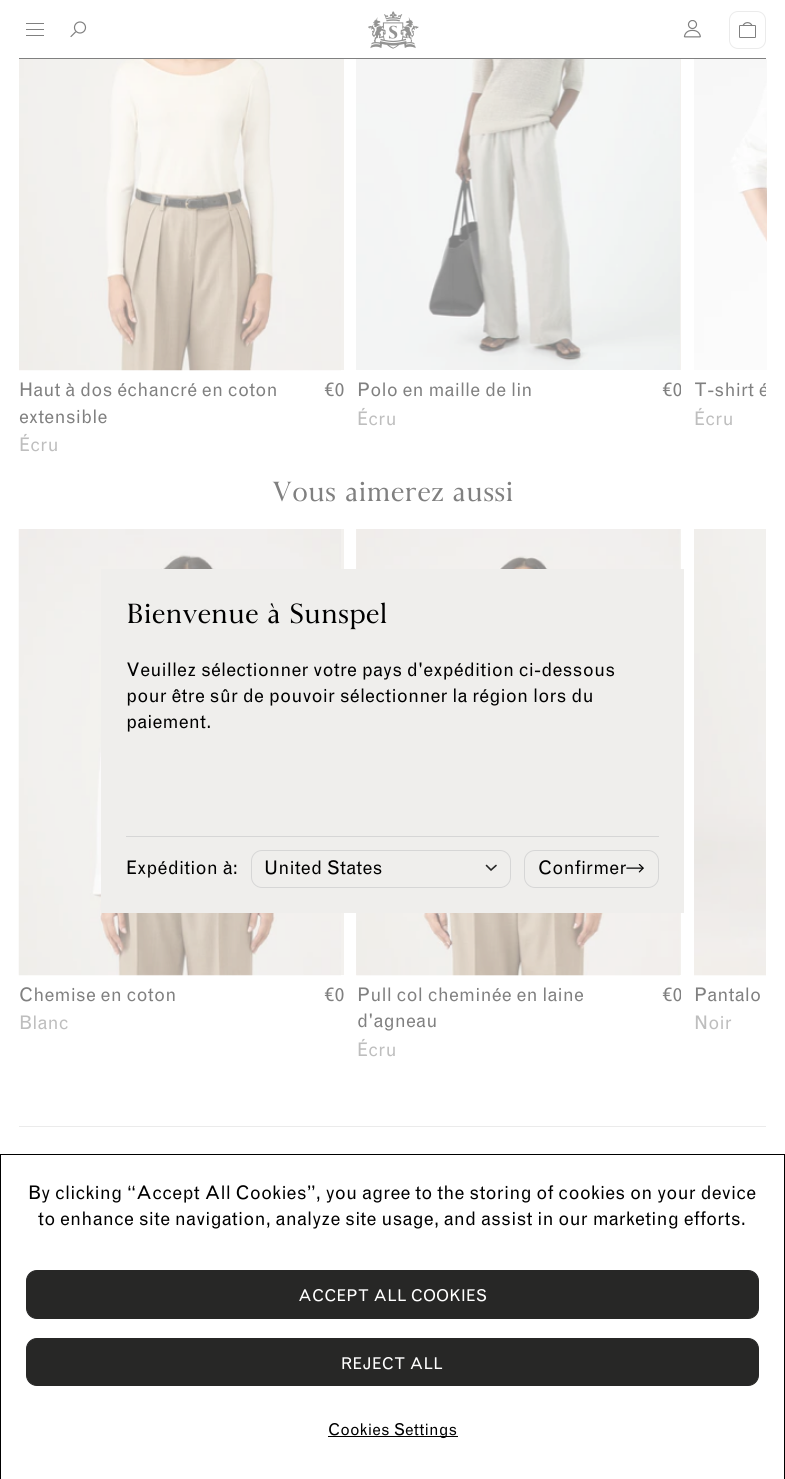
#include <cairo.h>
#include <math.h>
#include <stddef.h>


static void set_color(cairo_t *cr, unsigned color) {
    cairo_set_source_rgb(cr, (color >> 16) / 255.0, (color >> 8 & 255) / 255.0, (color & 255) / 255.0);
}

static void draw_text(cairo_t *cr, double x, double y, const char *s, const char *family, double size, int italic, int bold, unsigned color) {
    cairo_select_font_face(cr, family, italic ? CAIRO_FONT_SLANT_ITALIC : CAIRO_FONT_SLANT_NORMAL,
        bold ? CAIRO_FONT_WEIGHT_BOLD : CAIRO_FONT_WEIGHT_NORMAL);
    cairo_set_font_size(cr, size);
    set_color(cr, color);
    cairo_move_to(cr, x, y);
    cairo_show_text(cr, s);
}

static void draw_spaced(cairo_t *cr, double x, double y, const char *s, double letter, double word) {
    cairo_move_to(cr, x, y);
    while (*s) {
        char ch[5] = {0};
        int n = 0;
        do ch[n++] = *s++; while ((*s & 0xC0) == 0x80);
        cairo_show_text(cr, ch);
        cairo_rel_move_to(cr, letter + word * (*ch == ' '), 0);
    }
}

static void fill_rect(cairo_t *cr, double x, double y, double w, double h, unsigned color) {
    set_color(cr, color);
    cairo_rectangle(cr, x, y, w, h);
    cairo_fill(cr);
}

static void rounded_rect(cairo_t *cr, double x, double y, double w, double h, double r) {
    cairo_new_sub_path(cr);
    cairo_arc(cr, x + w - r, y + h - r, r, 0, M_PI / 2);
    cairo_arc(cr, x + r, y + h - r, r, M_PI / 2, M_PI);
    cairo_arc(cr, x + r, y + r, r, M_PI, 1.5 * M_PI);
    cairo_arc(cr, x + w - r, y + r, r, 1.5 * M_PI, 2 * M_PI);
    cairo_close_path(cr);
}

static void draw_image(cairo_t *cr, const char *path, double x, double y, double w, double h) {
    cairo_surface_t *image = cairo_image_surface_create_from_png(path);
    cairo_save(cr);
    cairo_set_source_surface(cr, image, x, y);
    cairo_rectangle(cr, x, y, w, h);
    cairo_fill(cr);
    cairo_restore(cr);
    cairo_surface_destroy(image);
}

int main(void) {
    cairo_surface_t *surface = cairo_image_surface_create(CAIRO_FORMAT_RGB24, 785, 1479);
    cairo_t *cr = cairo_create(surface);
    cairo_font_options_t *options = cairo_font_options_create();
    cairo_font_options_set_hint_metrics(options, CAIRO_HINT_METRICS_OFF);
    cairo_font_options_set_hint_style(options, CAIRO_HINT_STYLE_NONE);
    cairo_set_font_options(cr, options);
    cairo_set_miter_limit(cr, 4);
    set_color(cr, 0xFFFFFF);
    cairo_paint(cr);
    fill_rect(cr, 19, 58, 747, 1, 0x808080);
    fill_rect(cr, 26, 23, 18, 1, 0x808080);
    fill_rect(cr, 26, 29, 18, 1, 0x808080);
    fill_rect(cr, 26, 35, 18, 1, 0x808080);
    cairo_arc(cr, 80, 27.5, 5.5, 0, 2 * M_PI);
    cairo_set_line_width(cr, 1.2);
    cairo_stroke(cr);
    cairo_new_path(cr);
    cairo_move_to(cr, 75.5, 32);
    cairo_line_to(cr, 71, 36.5);
    cairo_set_line_cap(cr, CAIRO_LINE_CAP_ROUND);
    cairo_set_line_join(cr, CAIRO_LINE_JOIN_BEVEL);
    cairo_stroke(cr);
    draw_image(cr, "assets/img1.png", 368, 11, 51, 38);
    draw_image(cr, "assets/img2.png", 683, 20, 18, 18);
    rounded_rect(cr, 729.5, 11.5, 36, 37, 8.5);
    set_color(cr, 0xEBEBEB);
    cairo_set_line_width(cr, 1);
    cairo_set_line_cap(cr, CAIRO_LINE_CAP_BUTT);
    cairo_set_line_join(cr, CAIRO_LINE_JOIN_MITER);
    cairo_stroke(cr);
    rounded_rect(cr, 739.5, 25.5, 16, 12, 0.5);
    set_color(cr, 0x808080);
    cairo_stroke(cr);
    cairo_new_path(cr);
    cairo_move_to(cr, 743, 26);
    cairo_curve_to(cr, 744, 21.5, 751, 21.5, 752, 26);
    cairo_set_line_width(cr, 1.2);
    cairo_stroke(cr);
    fill_rect(cr, 341, 59, 3, 311, 0xF3F1EE);
    draw_image(cr, "assets/img3.png", 19, 59, 322, 312);
    cairo_select_font_face(cr, "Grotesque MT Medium", CAIRO_FONT_SLANT_NORMAL, CAIRO_FONT_WEIGHT_NORMAL);
    cairo_set_font_size(cr, 18.75);
    set_color(cr, 0x808080);
    draw_spaced(cr, 19, 396, "Haut à dos échancré en coton", 0.12, 0);
    draw_spaced(cr, 19, 423, "extensible", 0.12, 0);
    cairo_select_font_face(cr, "Roboto", CAIRO_FONT_SLANT_NORMAL, CAIRO_FONT_WEIGHT_NORMAL);
    draw_spaced(cr, 324, 396, "€", 0.12, 0);
    cairo_select_font_face(cr, "Grotesque MT Medium", CAIRO_FONT_SLANT_NORMAL, CAIRO_FONT_WEIGHT_NORMAL);
    draw_spaced(cr, 335, 396, "0", 0.12, 0);
    set_color(cr, 0xBEBEBE);
    draw_spaced(cr, 19, 451, "Écru", 0.12, 0);
    fill_rect(cr, 680, 59, 1, 311, 0xF3F1EE);
    draw_image(cr, "assets/img4.png", 356, 59, 324, 311);
    set_color(cr, 0x808080);
    draw_spaced(cr, 357, 396, "Polo en maille de lin", 0.12, 0);
    cairo_select_font_face(cr, "Roboto", CAIRO_FONT_SLANT_NORMAL, CAIRO_FONT_WEIGHT_NORMAL);
    draw_spaced(cr, 662, 396, "€", 0.12, 0);
    cairo_save(cr);
    cairo_rectangle(cr, 356, 0, 325, 459);
    cairo_clip(cr);
    cairo_select_font_face(cr, "Grotesque MT Medium", CAIRO_FONT_SLANT_NORMAL, CAIRO_FONT_WEIGHT_NORMAL);
    draw_spaced(cr, 673, 396, "0", 0.12, 0);
    cairo_restore(cr);
    cairo_select_font_face(cr, "Grotesque MT Medium", CAIRO_FONT_SLANT_NORMAL, CAIRO_FONT_WEIGHT_NORMAL);
    set_color(cr, 0xBEBEBE);
    draw_spaced(cr, 357, 425, "Écru", 0.12, 0);
    draw_image(cr, "assets/img5.png", 694, 59, 73, 311);
    cairo_save(cr);
    cairo_rectangle(cr, 694, 0, 72, 459);
    cairo_clip(cr);
    set_color(cr, 0x808080);
    draw_spaced(cr, 694, 396, "T-shirt é", 0.12, 0);
    cairo_restore(cr);
    draw_spaced(cr, 694, 425, "Écru", 0.12, 0);
    cairo_select_font_face(cr, "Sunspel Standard", CAIRO_FONT_SLANT_NORMAL, CAIRO_FONT_WEIGHT_NORMAL);
    cairo_set_font_size(cr, 27.5);
    set_color(cr, 0x808080);
    draw_spaced(cr, 272, 501, "Vous aimerez aussi", 0.12, 0);
    fill_rect(cr, 19, 529, 325, 446, 0xF3F1EE);
    draw_image(cr, "assets/img6.png", 18, 529, 323, 447);
    cairo_select_font_face(cr, "Grotesque MT Medium", CAIRO_FONT_SLANT_NORMAL, CAIRO_FONT_WEIGHT_NORMAL);
    cairo_set_font_size(cr, 18.75);
    set_color(cr, 0x808080);
    draw_spaced(cr, 19, 1001, "Chemise en coton", 0.12, 0);
    cairo_select_font_face(cr, "Roboto", CAIRO_FONT_SLANT_NORMAL, CAIRO_FONT_WEIGHT_NORMAL);
    draw_spaced(cr, 324, 1001, "€", 0.12, 0);
    cairo_select_font_face(cr, "Grotesque MT Medium", CAIRO_FONT_SLANT_NORMAL, CAIRO_FONT_WEIGHT_NORMAL);
    draw_spaced(cr, 335, 1001, "0", 0.12, 0);
    set_color(cr, 0xBEBEBE);
    draw_spaced(cr, 19, 1029, "Blanc", 0.12, 0);
    fill_rect(cr, 356, 529, 325, 446, 0xF3F1EE);
    draw_image(cr, "assets/img7.png", 356, 529, 324, 447);
    set_color(cr, 0x808080);
    draw_spaced(cr, 357, 1001, "Pull col cheminée en laine", 0.12, 0);
    draw_spaced(cr, 357, 1027, "d'agneau", 0.12, 0);
    cairo_select_font_face(cr, "Roboto", CAIRO_FONT_SLANT_NORMAL, CAIRO_FONT_WEIGHT_NORMAL);
    draw_spaced(cr, 662, 1001, "€", 0.12, 0);
    cairo_save(cr);
    cairo_rectangle(cr, 356, 529, 325, 535);
    cairo_clip(cr);
    cairo_select_font_face(cr, "Grotesque MT Medium", CAIRO_FONT_SLANT_NORMAL, CAIRO_FONT_WEIGHT_NORMAL);
    draw_spaced(cr, 673, 1001, "0", 0.12, 0);
    cairo_restore(cr);
    cairo_select_font_face(cr, "Grotesque MT Medium", CAIRO_FONT_SLANT_NORMAL, CAIRO_FONT_WEIGHT_NORMAL);
    set_color(cr, 0xBEBEBE);
    draw_spaced(cr, 357, 1056, "Écru", 0.12, 0);
    draw_image(cr, "assets/img8.png", 694, 529, 72, 447);
    set_color(cr, 0x808080);
    draw_spaced(cr, 694, 1001, "Pantalo", 0.12, 0);
    set_color(cr, 0xBEBEBE);
    draw_spaced(cr, 694, 1029, "Noir", 0.12, 0);
    fill_rect(cr, 101, 569, 583, 344, 0xEFEEEC);
    draw_text(cr, 126, 623, "Bienvenue à Sunspel", "Sunspel Standard", 27.5, 0, 0, 0x000000);
    cairo_select_font_face(cr, "Grotesque MT Medium", CAIRO_FONT_SLANT_NORMAL, CAIRO_FONT_WEIGHT_NORMAL);
    cairo_set_font_size(cr, 18.75);
    draw_spaced(cr, 126, 676, "Veuillez sélectionner votre pays d'expédition ci-dessous", 0.12, 0);
    draw_spaced(cr, 126, 702, "pour être sûr de pouvoir sélectionner la région lors du", 0.12, 0);
    draw_spaced(cr, 126, 728, "paiement.", 0.12, 0);
    fill_rect(cr, 126, 836, 533, 1, 0xD6D6D6);
    set_color(cr, 0x000000);
    draw_spaced(cr, 126, 874, "Expédition à:", 0.12, 0);
    cairo_new_path(cr);
    cairo_move_to(cr, 486.5, 865.5);
    cairo_line_to(cr, 491, 870);
    cairo_line_to(cr, 496, 865.5);
    set_color(cr, 0x262626);
    cairo_set_line_width(cr, 1.6);
    cairo_set_line_cap(cr, CAIRO_LINE_CAP_ROUND);
    cairo_stroke(cr);
    rounded_rect(cr, 251.5, 850.5, 259, 37, 10.5);
    set_color(cr, 0xD6D6D6);
    cairo_set_line_width(cr, 1);
    cairo_set_line_cap(cr, CAIRO_LINE_CAP_BUTT);
    cairo_stroke(cr);
    set_color(cr, 0x000000);
    draw_spaced(cr, 264, 874, "United States", 0.12, 0);
    rounded_rect(cr, 524.5, 850.5, 134, 37, 10.5);
    set_color(cr, 0xD6D6D6);
    cairo_stroke(cr);
    set_color(cr, 0x000000);
    draw_spaced(cr, 538, 874, "Confirmer", 0.12, 0);
    draw_image(cr, "assets/img9.png", 626, 864, 18, 9);
    fill_rect(cr, 19, 1126, 747, 1, 0xEBEBEB);
    cairo_rectangle(cr, 0.5, 1154.5, 784, 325);
    set_color(cr, 0x000000);
    cairo_stroke(cr);
    draw_spaced(cr, 28, 1199, "By clicking “Accept All Cookies”, you agree to the storing of cookies on your device", 0.12, 0);
    draw_spaced(cr, 38, 1225, "to enhance site navigation, analyze site usage, and assist in our marketing efforts.", 0.12, 0);
    set_color(cr, 0x272726);
    rounded_rect(cr, 26.5, 1270.5, 732, 48, 10.5);
    cairo_fill_preserve(cr);
    cairo_stroke(cr);
    cairo_set_font_size(cr, 16.25);
    set_color(cr, 0xFFFFFF);
    draw_spaced(cr, 298, 1301, "ACCEPT ALL COOKIES", 0.1, 0);
    set_color(cr, 0x272726);
    rounded_rect(cr, 26.5, 1338.5, 732, 47, 10.5);
    cairo_fill_preserve(cr);
    cairo_stroke(cr);
    set_color(cr, 0xFFFFFF);
    draw_spaced(cr, 341, 1369, "REJECT ALL", 0.1, 0);
    fill_rect(cr, 328, 1436, 130, 1, 0x000000);
    draw_spaced(cr, 328, 1435, "Cookies Settings", 0.1, 0);
    cairo_surface_write_to_png(surface, "output.png");
    cairo_font_options_destroy(options);
    cairo_destroy(cr);
    cairo_surface_destroy(surface);
    return 0;
}
